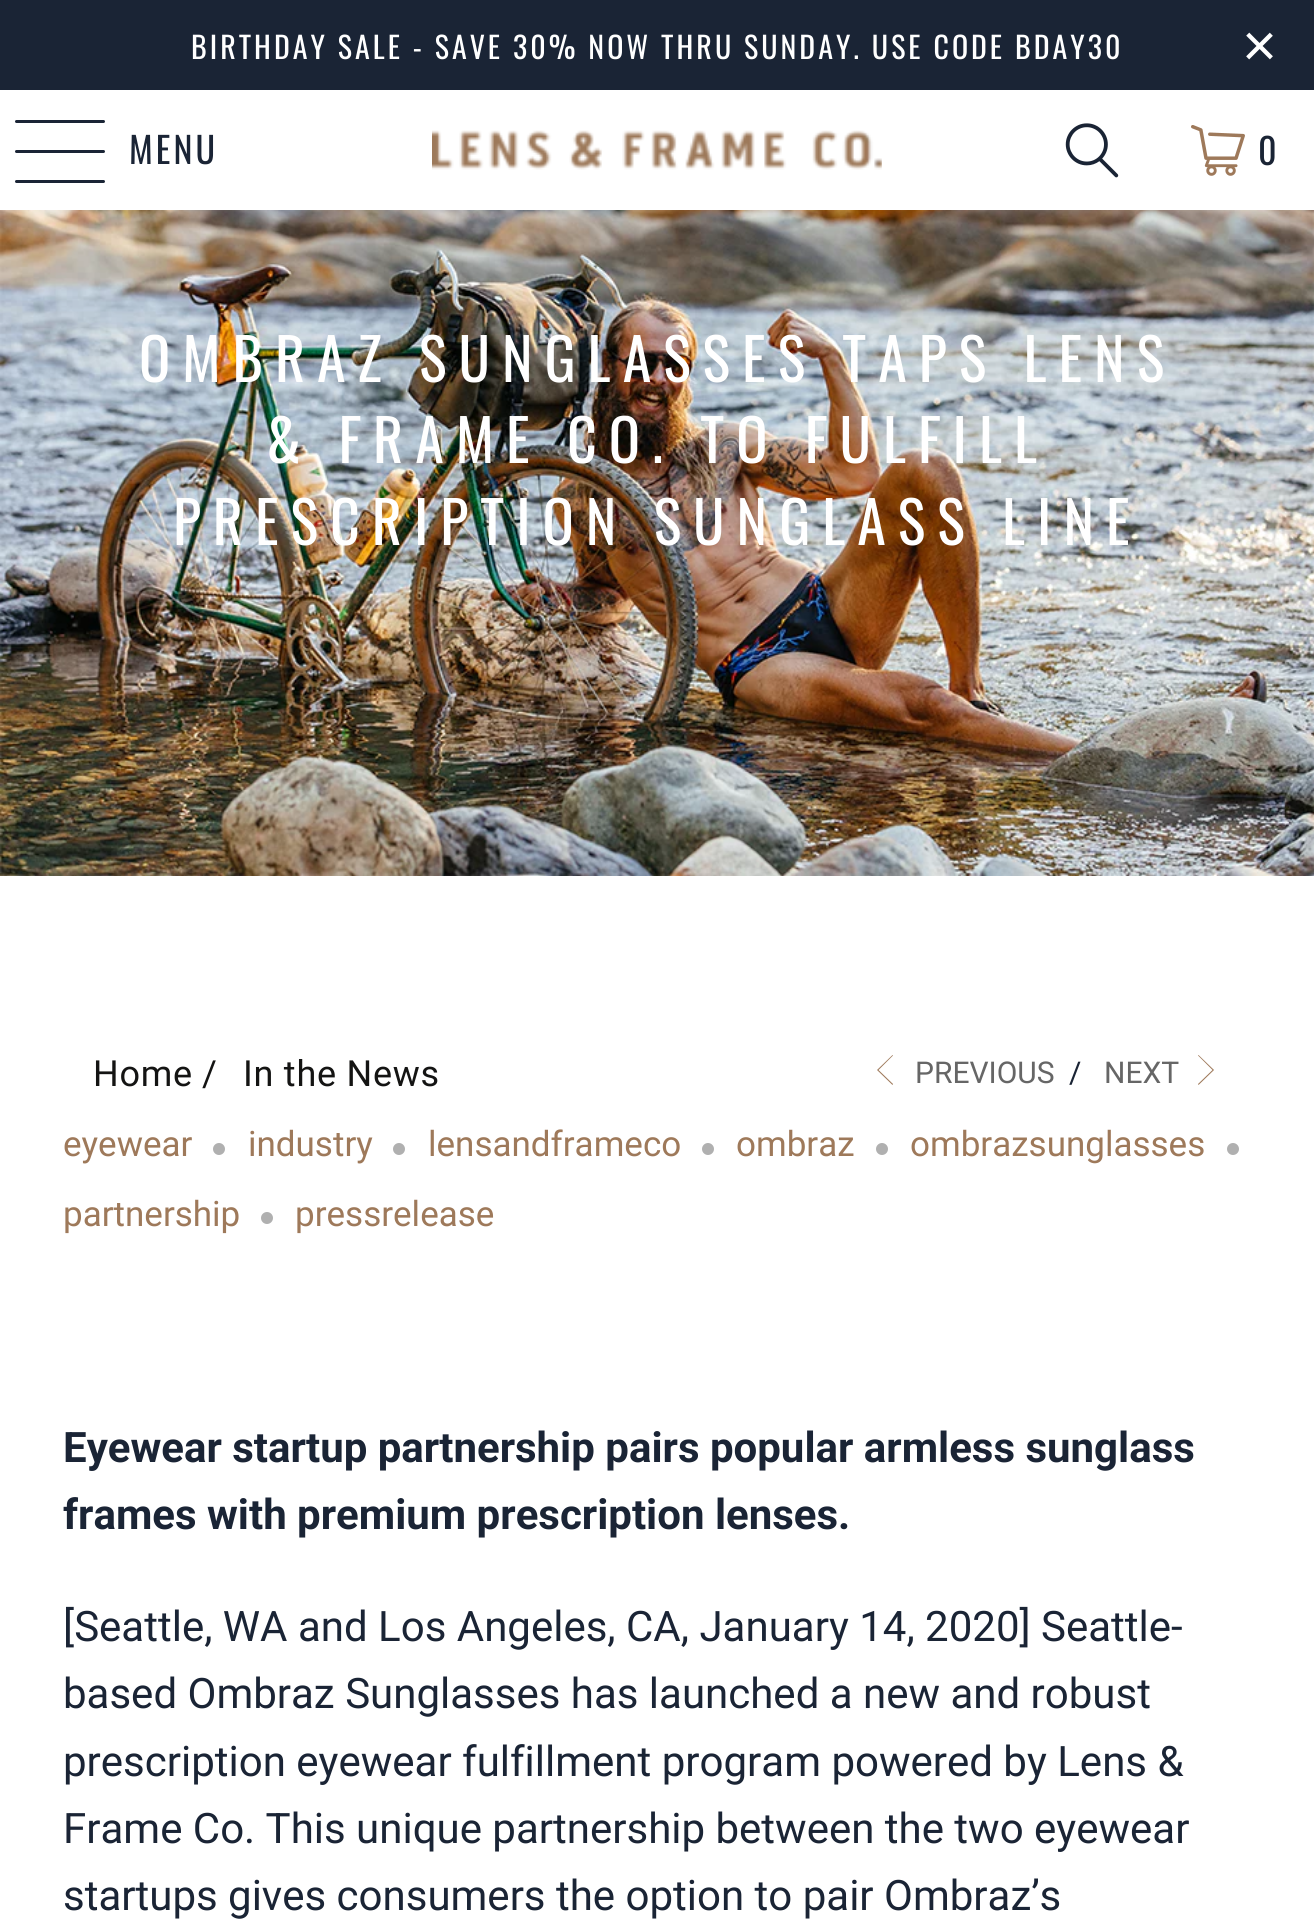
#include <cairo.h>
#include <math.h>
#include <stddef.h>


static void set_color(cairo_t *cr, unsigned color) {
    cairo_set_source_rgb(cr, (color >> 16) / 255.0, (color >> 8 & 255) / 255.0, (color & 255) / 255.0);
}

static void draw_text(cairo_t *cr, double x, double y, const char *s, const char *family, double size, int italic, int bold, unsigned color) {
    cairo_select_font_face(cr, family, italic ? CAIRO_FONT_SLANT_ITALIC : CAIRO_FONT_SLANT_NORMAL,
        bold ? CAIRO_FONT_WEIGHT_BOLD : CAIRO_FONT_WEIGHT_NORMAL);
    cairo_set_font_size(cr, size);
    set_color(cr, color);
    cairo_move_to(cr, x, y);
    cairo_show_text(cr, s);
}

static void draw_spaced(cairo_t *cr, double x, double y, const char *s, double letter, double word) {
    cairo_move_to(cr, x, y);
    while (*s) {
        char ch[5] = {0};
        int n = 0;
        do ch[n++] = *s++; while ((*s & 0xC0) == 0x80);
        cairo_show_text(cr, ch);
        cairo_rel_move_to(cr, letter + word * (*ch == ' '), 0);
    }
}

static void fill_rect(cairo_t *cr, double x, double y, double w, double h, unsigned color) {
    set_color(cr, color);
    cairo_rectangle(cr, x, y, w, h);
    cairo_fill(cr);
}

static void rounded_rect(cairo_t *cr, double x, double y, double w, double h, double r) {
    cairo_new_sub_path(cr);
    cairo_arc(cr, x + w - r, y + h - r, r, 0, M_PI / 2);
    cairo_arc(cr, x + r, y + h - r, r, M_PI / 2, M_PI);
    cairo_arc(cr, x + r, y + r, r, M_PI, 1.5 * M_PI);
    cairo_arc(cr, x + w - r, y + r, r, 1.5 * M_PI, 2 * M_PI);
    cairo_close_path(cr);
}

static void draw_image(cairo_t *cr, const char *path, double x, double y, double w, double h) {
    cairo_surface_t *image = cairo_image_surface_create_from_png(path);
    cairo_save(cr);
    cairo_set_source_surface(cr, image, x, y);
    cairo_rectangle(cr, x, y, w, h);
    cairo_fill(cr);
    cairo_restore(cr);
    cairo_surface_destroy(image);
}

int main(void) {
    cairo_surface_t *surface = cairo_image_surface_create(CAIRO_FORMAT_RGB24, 1314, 1928);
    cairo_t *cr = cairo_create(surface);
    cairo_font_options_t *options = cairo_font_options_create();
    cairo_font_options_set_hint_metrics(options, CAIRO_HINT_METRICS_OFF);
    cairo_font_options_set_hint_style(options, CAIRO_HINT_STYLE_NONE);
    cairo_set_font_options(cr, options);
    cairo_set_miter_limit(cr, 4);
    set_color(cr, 0xFFFFFF);
    cairo_paint(cr);
    fill_rect(cr, 0, 0, 1314, 90, 0x1A2435);
    cairo_select_font_face(cr, "Oswald", CAIRO_FONT_SLANT_NORMAL, CAIRO_FONT_WEIGHT_NORMAL);
    cairo_set_font_size(cr, 30);
    set_color(cr, 0xFFFFFF);
    draw_spaced(cr, 191, 59, "BIRTHDAY SALE - SAVE 30% NOW THRU SUNDAY. USE CODE BDAY30", 3, 0);
    cairo_select_font_face(cr, "Liberation Sans", CAIRO_FONT_SLANT_NORMAL, CAIRO_FONT_WEIGHT_NORMAL);
    cairo_set_font_size(cr, 60);
    draw_spaced(cr, 1242, 66, "×", 3, 0);
    set_color(cr, 0x1A2435);
    rounded_rect(cr, 15, 120, 90, 3, 1.5);
    cairo_fill(cr);
    rounded_rect(cr, 15, 150, 90, 3, 1.5);
    cairo_fill(cr);
    rounded_rect(cr, 15, 180, 90, 3, 1.5);
    cairo_fill(cr);
    cairo_select_font_face(cr, "Oswald", CAIRO_FONT_SLANT_NORMAL, CAIRO_FONT_WEIGHT_NORMAL);
    cairo_set_font_size(cr, 36);
    draw_spaced(cr, 129, 164, "MENU", 3, 0);
    draw_image(cr, "assets/img1.png", 432, 130, 450, 40);
    draw_image(cr, "assets/img2.png", 1065, 123, 54, 55);
    draw_image(cr, "assets/img3.png", 1191, 125, 54, 51);
    draw_spaced(cr, 1258, 165, "0", 3, 0);
    draw_image(cr, "assets/img4.png", 0, 210, 1314, 666);
    cairo_set_font_size(cr, 58);
    set_color(cr, 0xFFFFFF);
    draw_spaced(cr, 139, 382, "OMBRAZ SUNGLASSES TAPS LENS", 12, 0);
    draw_spaced(cr, 266, 463, "& FRAME CO. TO FULFILL", 12, 0);
    draw_spaced(cr, 173, 545, "PRESCRIPTION SUNGLASS LINE", 12, 0);
    cairo_select_font_face(cr, "Roboto", CAIRO_FONT_SLANT_NORMAL, CAIRO_FONT_WEIGHT_NORMAL);
    cairo_set_font_size(cr, 36);
    set_color(cr, 0x141413);
    draw_spaced(cr, 93, 1086, "Home", 0.75, 0);
    draw_spaced(cr, 202, 1086, "/", 0.75, 0);
    draw_spaced(cr, 243, 1086, "In the News", 0.75, 0);
    set_color(cr, 0x9E795A);
    cairo_new_path(cr);
    cairo_move_to(cr, 892.5, 1085);
    cairo_line_to(cr, 877, 1070);
    cairo_line_to(cr, 892.5, 1055);
    cairo_line_to(cr, 893, 1055.5);
    cairo_line_to(cr, 878.5, 1070);
    cairo_line_to(cr, 893, 1084);
    cairo_close_path(cr);
    cairo_fill(cr);
    draw_text(cr, 915, 1083, "PREVIOUS", "Roboto", 30, 0, 0, 0x666666);
    draw_text(cr, 1069, 1083, "/", "Roboto", 30, 0, 0, 0x1A2435);
    draw_text(cr, 1104, 1083, "NEXT", "Roboto", 30, 0, 0, 0x666666);
    set_color(cr, 0x9E795A);
    cairo_new_path(cr);
    cairo_move_to(cr, 1198.5, 1085);
    cairo_line_to(cr, 1198, 1084);
    cairo_line_to(cr, 1212.5, 1070);
    cairo_line_to(cr, 1198, 1055.5);
    cairo_line_to(cr, 1198.5, 1055);
    cairo_line_to(cr, 1214, 1070);
    cairo_close_path(cr);
    cairo_fill(cr);
    draw_text(cr, 63, 1156, "eyewear", "Roboto", 35, 0, 0, 0x9E795A);
    set_color(cr, 0xB0B0B0);
    cairo_new_path(cr);
    cairo_arc(cr, 219, 1149, 6, 0, 2 * M_PI);
    cairo_fill(cr);
    draw_text(cr, 248, 1156, "industry", "Roboto", 35, 0, 0, 0x9E795A);
    set_color(cr, 0xB0B0B0);
    cairo_new_path(cr);
    cairo_arc(cr, 399, 1149, 6, 0, 2 * M_PI);
    cairo_fill(cr);
    draw_text(cr, 428, 1156, "lensandframeco", "Roboto", 35, 0, 0, 0x9E795A);
    set_color(cr, 0xB0B0B0);
    cairo_new_path(cr);
    cairo_arc(cr, 708, 1149, 6, 0, 2 * M_PI);
    cairo_fill(cr);
    draw_text(cr, 736, 1156, "ombraz", "Roboto", 35, 0, 0, 0x9E795A);
    set_color(cr, 0xB0B0B0);
    cairo_new_path(cr);
    cairo_arc(cr, 882, 1149, 6, 0, 2 * M_PI);
    cairo_fill(cr);
    draw_text(cr, 910, 1156, "ombrazsunglasses", "Roboto", 35, 0, 0, 0x9E795A);
    set_color(cr, 0xB0B0B0);
    cairo_new_path(cr);
    cairo_arc(cr, 1233, 1149, 6, 0, 2 * M_PI);
    cairo_fill(cr);
    draw_text(cr, 63, 1226, "partnership", "Roboto", 35, 0, 0, 0x9E795A);
    set_color(cr, 0xB0B0B0);
    cairo_new_path(cr);
    cairo_arc(cr, 267, 1218, 6, 0, 2 * M_PI);
    cairo_fill(cr);
    draw_text(cr, 295, 1226, "pressrelease", "Roboto", 35, 0, 0, 0x9E795A);
    draw_text(cr, 63, 1462, "Eyewear startup partnership pairs popular armless sunglass", "Roboto", 42, 0, 1, 0x1A2435);
    draw_text(cr, 63, 1529, "frames with premium prescription lenses.", "Roboto", 42, 0, 1, 0x1A2435);
    draw_text(cr, 63, 1641, "[Seattle, WA and Los Angeles, CA, January 14, 2020] Seattle-", "Roboto", 42, 0, 0, 0x1A2435);
    draw_text(cr, 63, 1708, "based Ombraz Sunglasses has launched a new and robust", "Roboto", 42, 0, 0, 0x1A2435);
    draw_text(cr, 63, 1776, "prescription eyewear fulfillment program powered by Lens &", "Roboto", 42, 0, 0, 0x1A2435);
    draw_text(cr, 63, 1843, "Frame Co. This unique partnership between the two eyewear", "Roboto", 42, 0, 0, 0x1A2435);
    draw_text(cr, 63, 1910, "startups gives consumers the option to pair Ombraz’s", "Roboto", 42, 0, 0, 0x1A2435);
    cairo_surface_write_to_png(surface, "output.png");
    cairo_font_options_destroy(options);
    cairo_destroy(cr);
    cairo_surface_destroy(surface);
    return 0;
}
